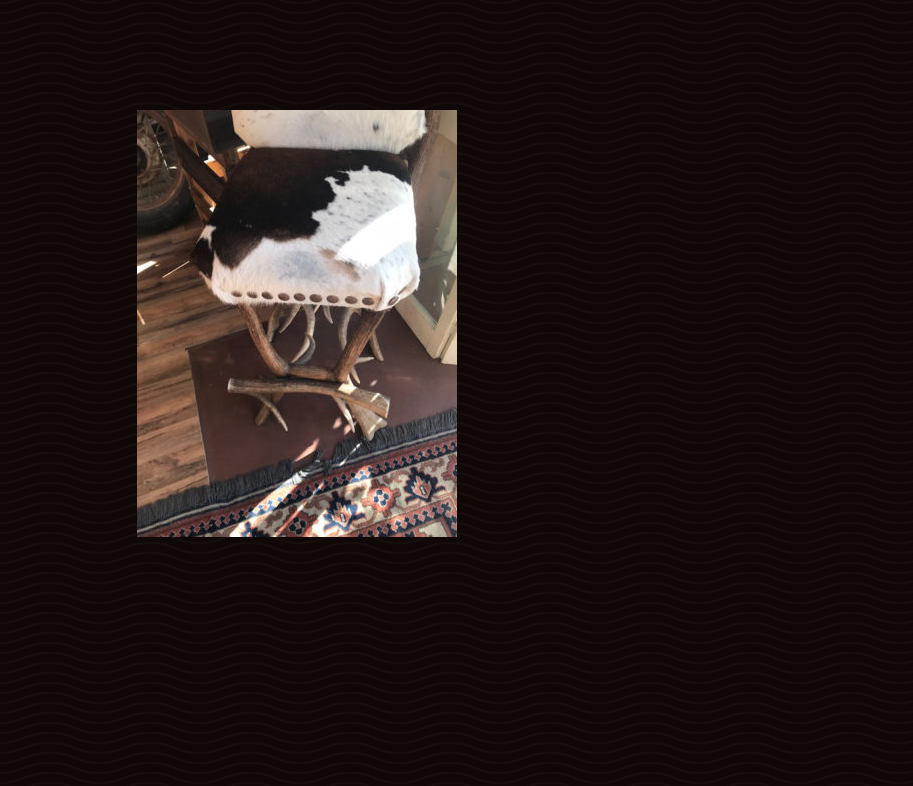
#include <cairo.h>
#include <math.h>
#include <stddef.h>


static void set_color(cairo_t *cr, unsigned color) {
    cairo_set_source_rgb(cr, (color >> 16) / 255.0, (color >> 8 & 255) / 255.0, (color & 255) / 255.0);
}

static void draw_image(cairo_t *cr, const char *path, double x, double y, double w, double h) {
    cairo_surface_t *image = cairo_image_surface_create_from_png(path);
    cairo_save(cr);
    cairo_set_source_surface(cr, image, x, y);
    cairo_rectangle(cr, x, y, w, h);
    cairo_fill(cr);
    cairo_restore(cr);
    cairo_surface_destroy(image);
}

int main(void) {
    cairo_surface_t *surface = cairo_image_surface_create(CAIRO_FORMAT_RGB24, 913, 786);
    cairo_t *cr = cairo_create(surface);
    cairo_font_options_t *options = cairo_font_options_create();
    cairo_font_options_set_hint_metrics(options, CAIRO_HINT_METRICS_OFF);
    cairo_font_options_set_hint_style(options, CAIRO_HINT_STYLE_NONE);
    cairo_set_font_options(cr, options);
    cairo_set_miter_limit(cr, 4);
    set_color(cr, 0x100806);
    cairo_paint(cr);
    draw_image(cr, "assets/img1.png", 0, 0, 913, 786);
    draw_image(cr, "assets/img2.png", 137, 110, 320, 427);
    cairo_surface_write_to_png(surface, "output.png");
    cairo_font_options_destroy(options);
    cairo_destroy(cr);
    cairo_surface_destroy(surface);
    return 0;
}
